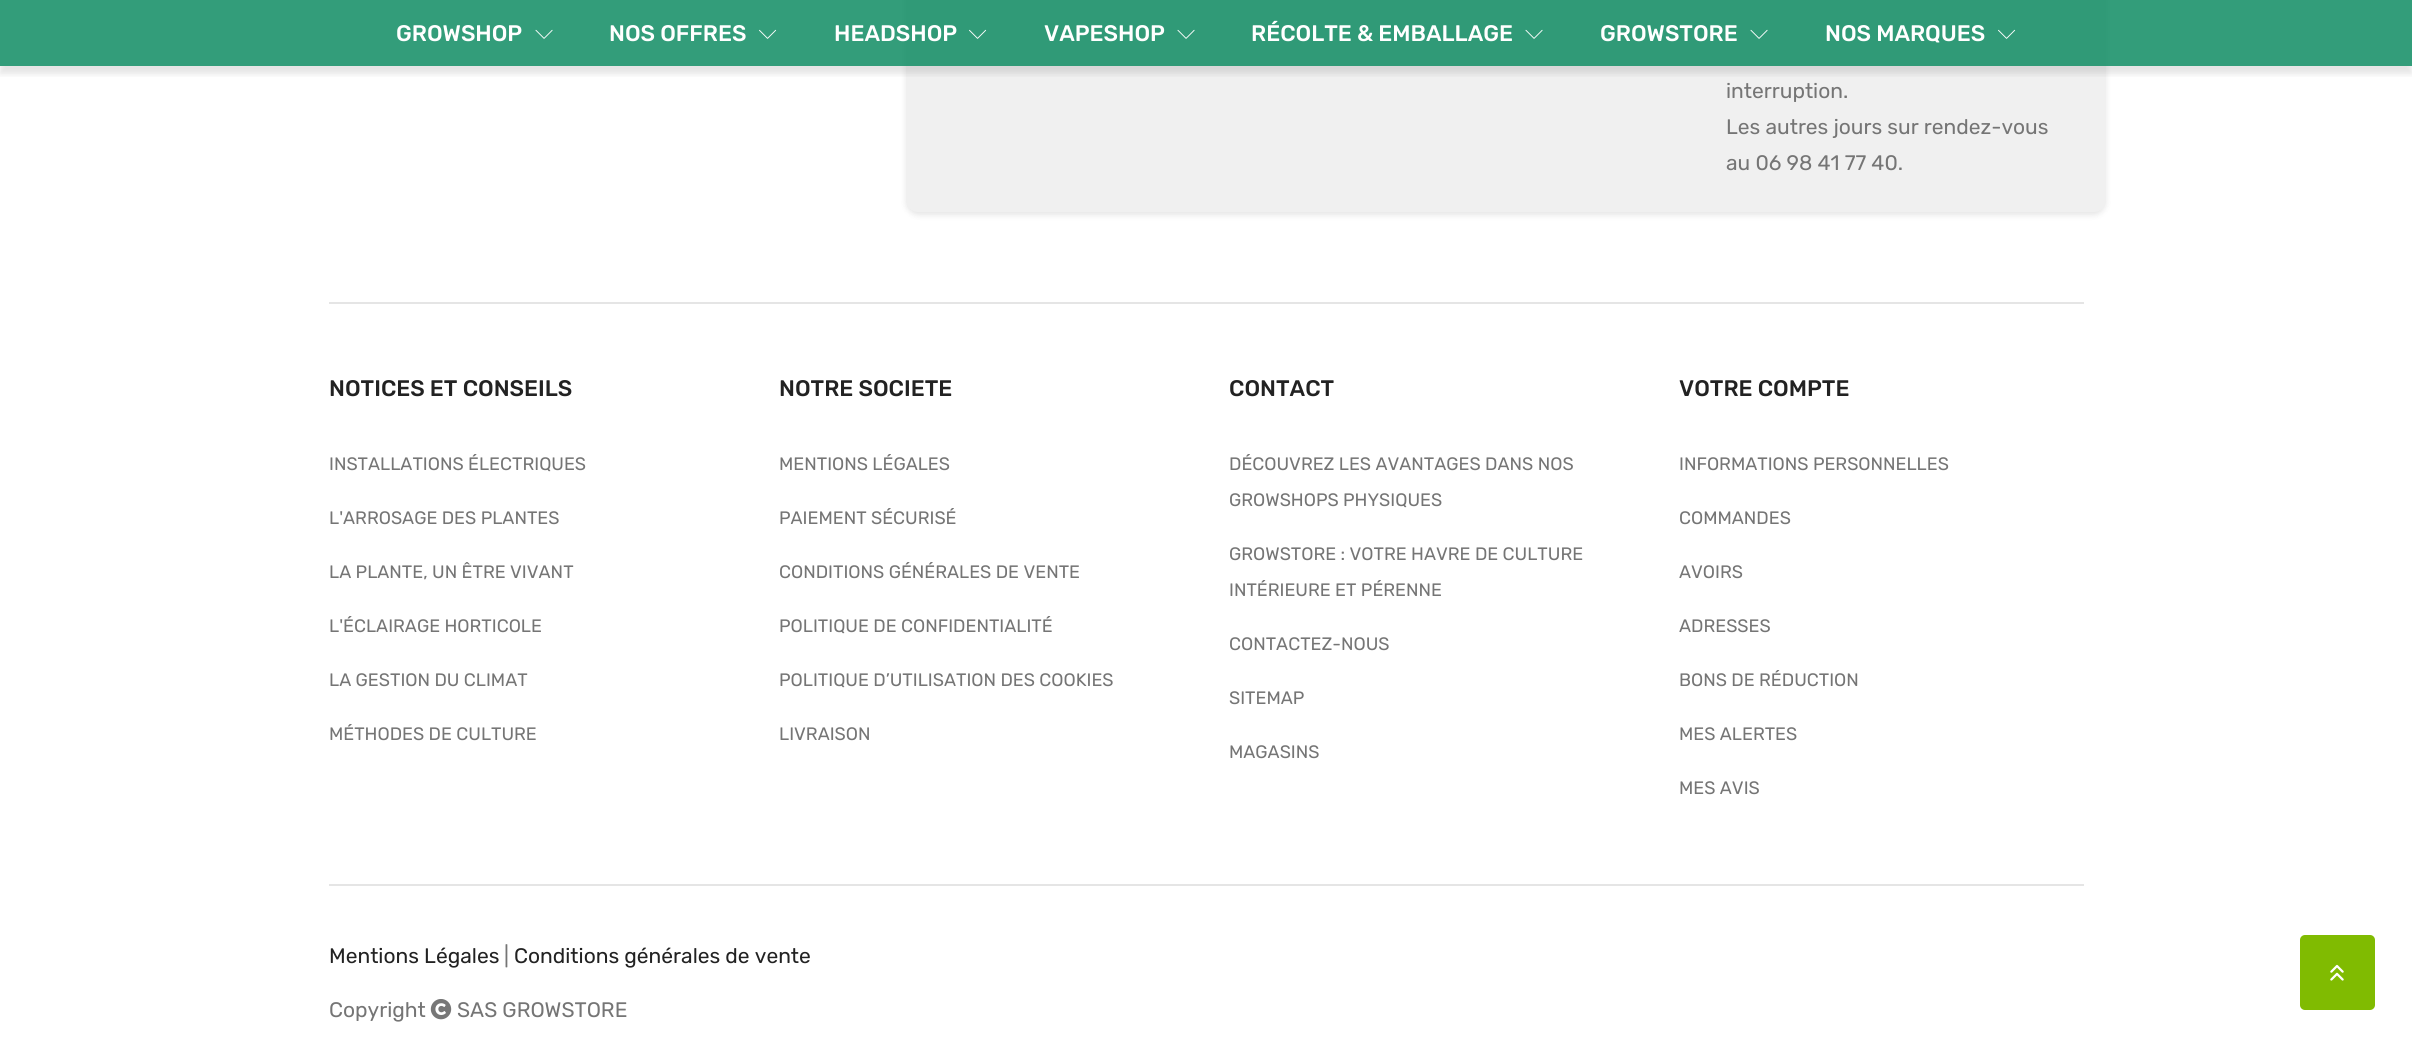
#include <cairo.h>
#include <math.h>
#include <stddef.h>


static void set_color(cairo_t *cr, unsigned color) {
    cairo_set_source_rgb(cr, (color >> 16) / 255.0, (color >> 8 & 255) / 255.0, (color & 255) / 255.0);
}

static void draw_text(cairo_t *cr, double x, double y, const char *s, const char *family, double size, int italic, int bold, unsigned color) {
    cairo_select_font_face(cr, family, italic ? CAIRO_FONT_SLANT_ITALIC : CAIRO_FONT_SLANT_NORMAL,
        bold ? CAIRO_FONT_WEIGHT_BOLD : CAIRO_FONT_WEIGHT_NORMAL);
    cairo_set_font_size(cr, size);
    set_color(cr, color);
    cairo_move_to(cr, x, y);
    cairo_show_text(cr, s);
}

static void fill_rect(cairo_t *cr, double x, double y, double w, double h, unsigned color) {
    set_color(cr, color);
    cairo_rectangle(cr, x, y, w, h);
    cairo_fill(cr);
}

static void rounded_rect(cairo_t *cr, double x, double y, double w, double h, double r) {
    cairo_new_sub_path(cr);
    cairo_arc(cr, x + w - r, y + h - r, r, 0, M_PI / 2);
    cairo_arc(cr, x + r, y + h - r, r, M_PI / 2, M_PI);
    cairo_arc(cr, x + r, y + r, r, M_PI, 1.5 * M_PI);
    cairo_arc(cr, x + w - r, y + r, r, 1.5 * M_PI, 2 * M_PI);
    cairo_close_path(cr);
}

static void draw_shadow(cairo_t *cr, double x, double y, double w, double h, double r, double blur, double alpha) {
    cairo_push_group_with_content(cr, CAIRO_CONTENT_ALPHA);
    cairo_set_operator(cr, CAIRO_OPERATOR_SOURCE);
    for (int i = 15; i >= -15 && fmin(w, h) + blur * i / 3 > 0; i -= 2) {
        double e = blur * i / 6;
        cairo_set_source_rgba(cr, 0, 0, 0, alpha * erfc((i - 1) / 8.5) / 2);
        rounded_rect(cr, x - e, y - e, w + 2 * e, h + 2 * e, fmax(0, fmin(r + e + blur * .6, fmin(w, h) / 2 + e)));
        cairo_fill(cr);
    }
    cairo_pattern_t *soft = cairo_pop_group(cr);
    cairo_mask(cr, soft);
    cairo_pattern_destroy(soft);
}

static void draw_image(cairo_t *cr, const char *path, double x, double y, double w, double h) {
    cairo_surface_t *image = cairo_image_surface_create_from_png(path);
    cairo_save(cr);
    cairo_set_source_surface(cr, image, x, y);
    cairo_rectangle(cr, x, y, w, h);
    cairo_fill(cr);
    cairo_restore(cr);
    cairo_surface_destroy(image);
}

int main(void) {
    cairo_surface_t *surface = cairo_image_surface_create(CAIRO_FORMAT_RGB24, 2412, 1046);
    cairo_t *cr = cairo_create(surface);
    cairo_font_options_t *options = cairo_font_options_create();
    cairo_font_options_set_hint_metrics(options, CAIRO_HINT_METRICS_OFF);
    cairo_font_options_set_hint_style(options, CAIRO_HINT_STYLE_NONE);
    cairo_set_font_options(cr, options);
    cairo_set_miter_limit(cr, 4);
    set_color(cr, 0xFFFFFF);
    cairo_paint(cr);
    set_color(cr, 0x000000);
    draw_shadow(cr, 906, -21, 1200, 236, 12, 3, 0.1);
    set_color(cr, 0xF0F0F0);
    rounded_rect(cr, 906, -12, 1200, 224, 12);
    cairo_fill(cr);
    cairo_save(cr);
    cairo_rectangle(cr, 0, 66, 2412, 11);
    cairo_clip(cr);
    set_color(cr, 0x000000);
    draw_shadow(cr, 0, 8, 2412, 66, 0, 3, 0.1);
    cairo_restore(cr);
    cairo_set_source_rgba(cr, 0, 0.518, 0.349, 0.8);
    cairo_rectangle(cr, 0, 0, 2412, 66);
    cairo_fill(cr);
    draw_text(cr, 396, 41, "GROWSHOP", "Rubik Medium", 22.5, 0, 0, 0xFFFFFF);
    draw_image(cr, "assets/img1.png", 535, 29, 18, 10);
    draw_text(cr, 609, 41, "NOS OFFRES", "Rubik Medium", 22.5, 0, 0, 0xFFFFFF);
    draw_image(cr, "assets/img2.png", 759, 29, 18, 10);
    draw_text(cr, 834, 41, "HEADSHOP", "Rubik Medium", 22.5, 0, 0, 0xFFFFFF);
    draw_image(cr, "assets/img3.png", 969, 29, 18, 10);
    draw_text(cr, 1044, 41, "VAPESHOP", "Rubik Medium", 22.5, 0, 0, 0xFFFFFF);
    draw_image(cr, "assets/img4.png", 1177, 29, 18, 10);
    draw_text(cr, 1251, 41, "RÉCOLTE & EMBALLAGE", "Rubik Medium", 22.5, 0, 0, 0xFFFFFF);
    draw_image(cr, "assets/img4.png", 1525, 29, 18, 10);
    draw_text(cr, 1600, 41, "GROWSTORE", "Rubik Medium", 22.5, 0, 0, 0xFFFFFF);
    draw_image(cr, "assets/img4.png", 1750, 29, 18, 10);
    draw_text(cr, 1825, 41, "NOS MARQUES", "Rubik Medium", 22.5, 0, 0, 0xFFFFFF);
    draw_image(cr, "assets/img3.png", 1998, 29, 18, 10);
    draw_text(cr, 1726, 98, "interruption.", "Rubik", 21, 0, 0, 0x757575);
    draw_text(cr, 1726, 134, "Les autres jours sur rendez-vous", "Rubik", 21, 0, 0, 0x757575);
    draw_text(cr, 1726, 170, "au 06 98 41 77 40.", "Rubik", 21, 0, 0, 0x757575);
    fill_rect(cr, 329, 302, 1755, 2, 0xE5E5E5);
    fill_rect(cr, 329, 884, 1755, 2, 0xE5E5E5);
    draw_text(cr, 329, 396, "NOTICES ET CONSEILS", "Rubik Medium", 22.5, 0, 0, 0x222222);
    draw_text(cr, 329, 470, "INSTALLATIONS ÉLECTRIQUES", "Rubik", 18, 0, 0, 0x757575);
    draw_text(cr, 329, 524, "L'ARROSAGE DES PLANTES", "Rubik", 18, 0, 0, 0x757575);
    draw_text(cr, 329, 578, "LA PLANTE, UN ÊTRE VIVANT", "Rubik", 18, 0, 0, 0x757575);
    draw_text(cr, 329, 632, "L'ÉCLAIRAGE HORTICOLE", "Rubik", 18, 0, 0, 0x757575);
    draw_text(cr, 329, 686, "LA GESTION DU CLIMAT", "Rubik", 18, 0, 0, 0x757575);
    draw_text(cr, 329, 740, "MÉTHODES DE CULTURE", "Rubik", 18, 0, 0, 0x757575);
    draw_text(cr, 779, 396, "NOTRE SOCIETE", "Rubik Medium", 22.5, 0, 0, 0x222222);
    draw_text(cr, 779, 470, "MENTIONS LÉGALES", "Rubik", 18, 0, 0, 0x757575);
    draw_text(cr, 779, 524, "PAIEMENT SÉCURISÉ", "Rubik", 18, 0, 0, 0x757575);
    draw_text(cr, 779, 578, "CONDITIONS GÉNÉRALES DE VENTE", "Rubik", 18, 0, 0, 0x757575);
    draw_text(cr, 779, 632, "POLITIQUE DE CONFIDENTIALITÉ", "Rubik", 18, 0, 0, 0x757575);
    draw_text(cr, 779, 686, "POLITIQUE D’UTILISATION DES COOKIES", "Rubik", 18, 0, 0, 0x757575);
    draw_text(cr, 779, 740, "LIVRAISON", "Rubik", 18, 0, 0, 0x757575);
    draw_text(cr, 1229, 396, "CONTACT", "Rubik Medium", 22.5, 0, 0, 0x222222);
    draw_text(cr, 1229, 470, "DÉCOUVREZ LES AVANTAGES DANS NOS", "Rubik", 18, 0, 0, 0x757575);
    draw_text(cr, 1229, 506, "GROWSHOPS PHYSIQUES", "Rubik", 18, 0, 0, 0x757575);
    draw_text(cr, 1229, 560, "GROWSTORE : VOTRE HAVRE DE CULTURE", "Rubik", 18, 0, 0, 0x757575);
    draw_text(cr, 1229, 596, "INTÉRIEURE ET PÉRENNE", "Rubik", 18, 0, 0, 0x757575);
    draw_text(cr, 1229, 650, "CONTACTEZ-NOUS", "Rubik", 18, 0, 0, 0x757575);
    draw_text(cr, 1229, 704, "SITEMAP", "Rubik", 18, 0, 0, 0x757575);
    draw_text(cr, 1229, 758, "MAGASINS", "Rubik", 18, 0, 0, 0x757575);
    draw_text(cr, 1679, 396, "VOTRE COMPTE", "Rubik Medium", 22.5, 0, 0, 0x222222);
    draw_text(cr, 1679, 470, "INFORMATIONS PERSONNELLES", "Rubik", 18, 0, 0, 0x757575);
    draw_text(cr, 1679, 524, "COMMANDES", "Rubik", 18, 0, 0, 0x757575);
    draw_text(cr, 1679, 578, "AVOIRS", "Rubik", 18, 0, 0, 0x757575);
    draw_text(cr, 1679, 632, "ADRESSES", "Rubik", 18, 0, 0, 0x757575);
    draw_text(cr, 1679, 686, "BONS DE RÉDUCTION", "Rubik", 18, 0, 0, 0x757575);
    draw_text(cr, 1679, 740, "MES ALERTES", "Rubik", 18, 0, 0, 0x757575);
    draw_text(cr, 1679, 794, "MES AVIS", "Rubik", 18, 0, 0, 0x757575);
    draw_text(cr, 329, 963, "Mentions Légales", "Rubik", 21, 0, 0, 0x222222);
    draw_text(cr, 504, 963, "|", "Rubik", 21, 0, 0, 0x757575);
    draw_text(cr, 514, 963, "Conditions générales de vente", "Rubik", 21, 0, 0, 0x222222);
    draw_text(cr, 329, 1017, "Copyright", "Rubik", 21, 0, 0, 0x757575);
    draw_image(cr, "assets/img5.png", 430, 999, 22, 21);
    draw_text(cr, 457, 1017, "SAS GROWSTORE", "Rubik", 21, 0, 0, 0x757575);
    set_color(cr, 0x80BB01);
    rounded_rect(cr, 2300, 935, 75, 75, 5);
    cairo_fill(cr);
    draw_image(cr, "assets/img6.png", 2330, 964, 14, 17);
    cairo_surface_write_to_png(surface, "output.png");
    cairo_font_options_destroy(options);
    cairo_destroy(cr);
    cairo_surface_destroy(surface);
    return 0;
}
